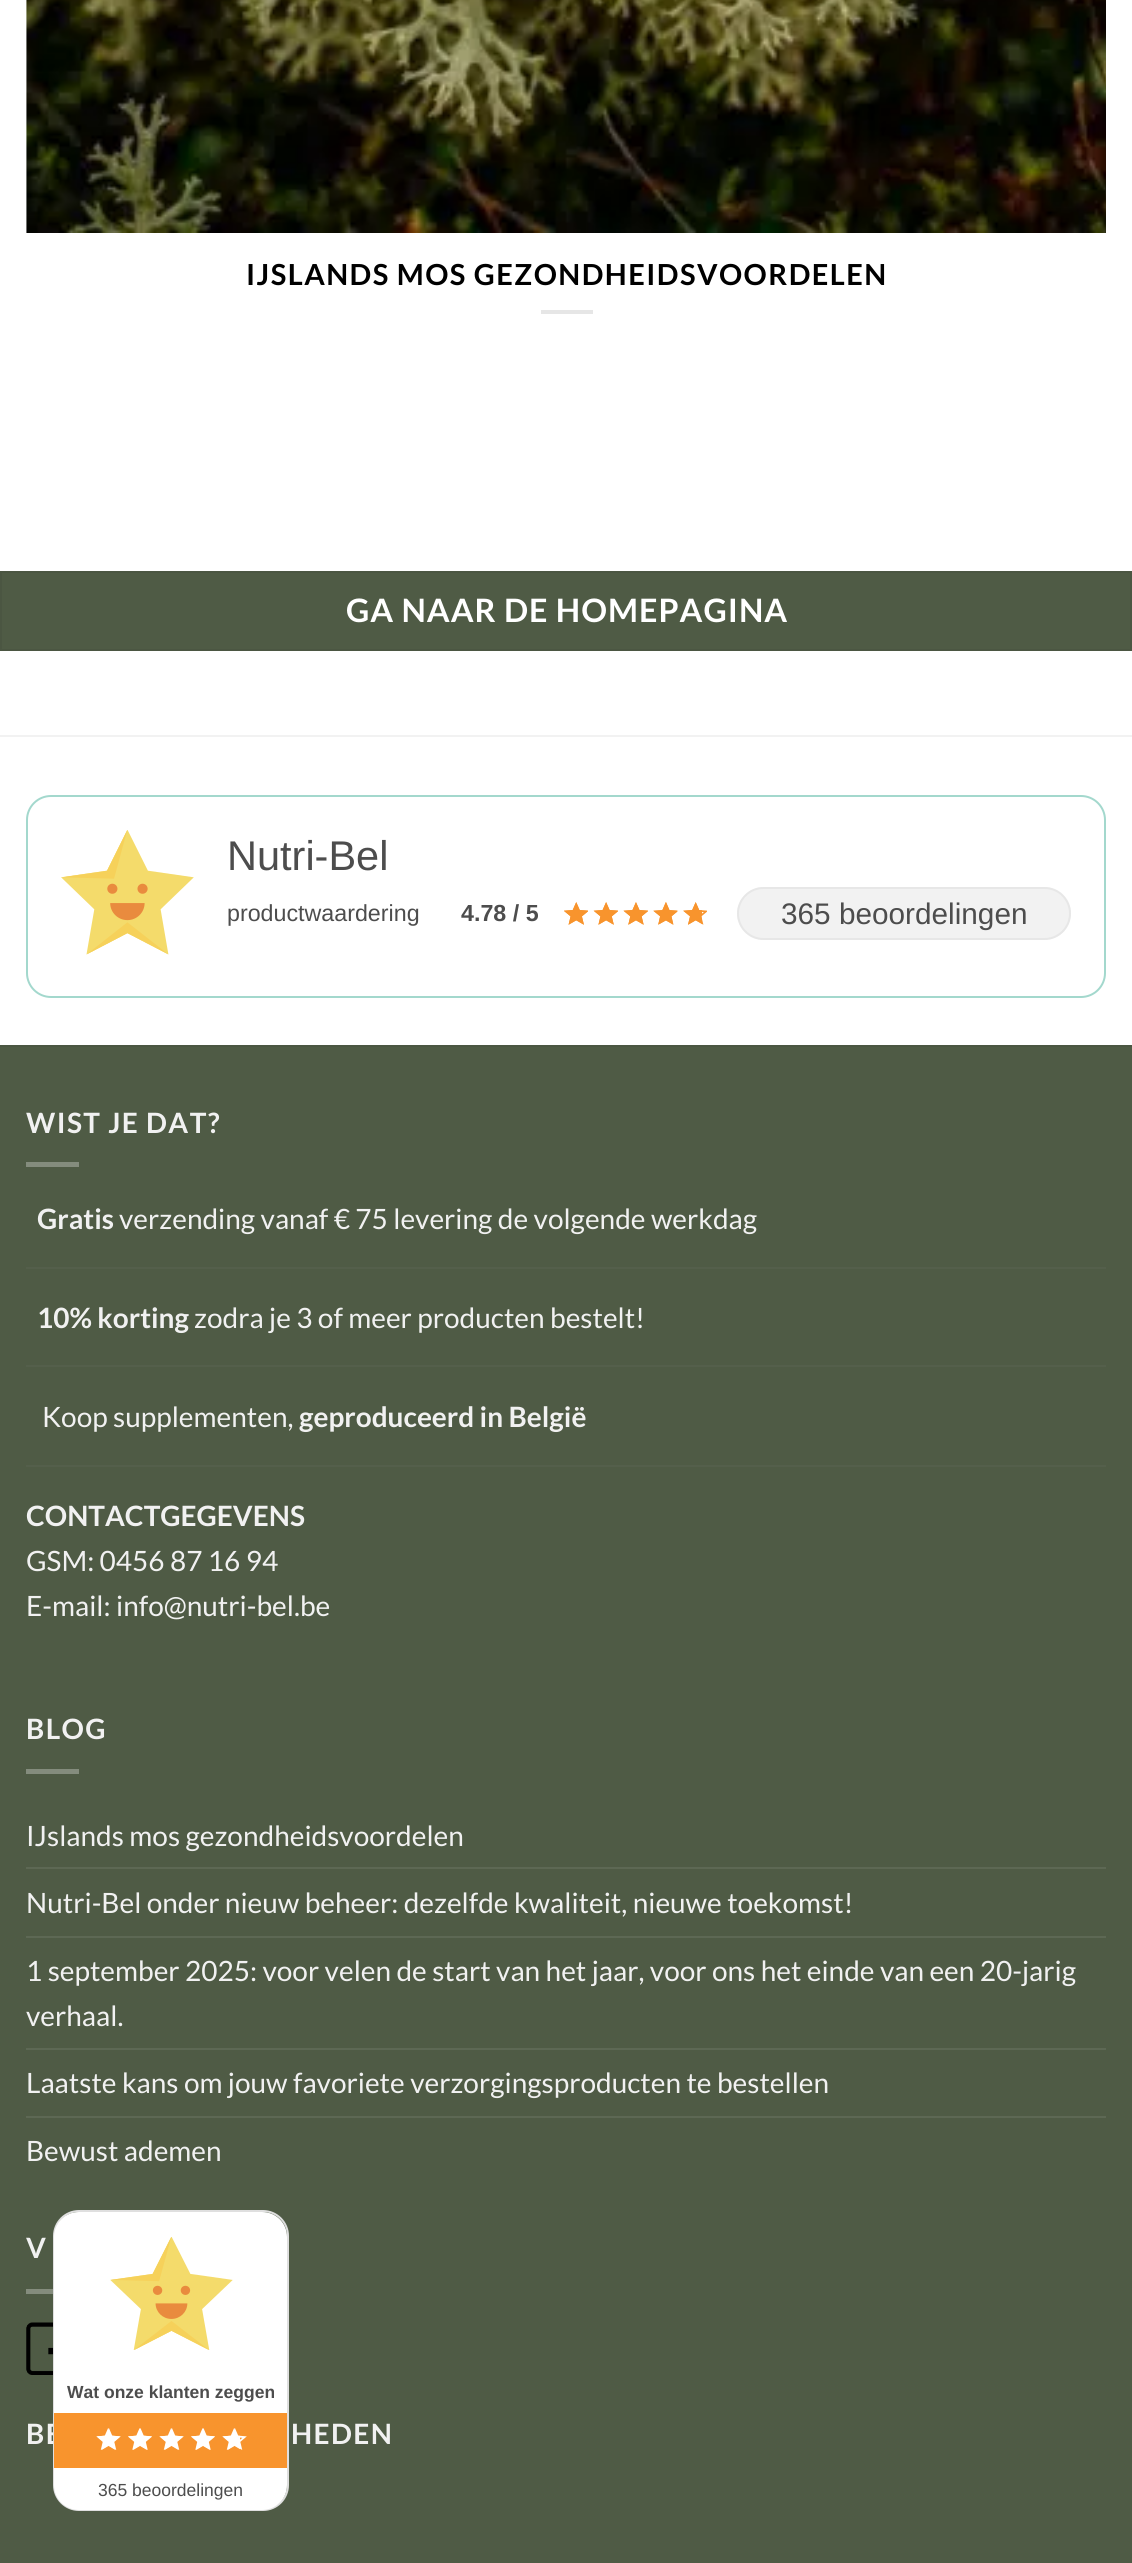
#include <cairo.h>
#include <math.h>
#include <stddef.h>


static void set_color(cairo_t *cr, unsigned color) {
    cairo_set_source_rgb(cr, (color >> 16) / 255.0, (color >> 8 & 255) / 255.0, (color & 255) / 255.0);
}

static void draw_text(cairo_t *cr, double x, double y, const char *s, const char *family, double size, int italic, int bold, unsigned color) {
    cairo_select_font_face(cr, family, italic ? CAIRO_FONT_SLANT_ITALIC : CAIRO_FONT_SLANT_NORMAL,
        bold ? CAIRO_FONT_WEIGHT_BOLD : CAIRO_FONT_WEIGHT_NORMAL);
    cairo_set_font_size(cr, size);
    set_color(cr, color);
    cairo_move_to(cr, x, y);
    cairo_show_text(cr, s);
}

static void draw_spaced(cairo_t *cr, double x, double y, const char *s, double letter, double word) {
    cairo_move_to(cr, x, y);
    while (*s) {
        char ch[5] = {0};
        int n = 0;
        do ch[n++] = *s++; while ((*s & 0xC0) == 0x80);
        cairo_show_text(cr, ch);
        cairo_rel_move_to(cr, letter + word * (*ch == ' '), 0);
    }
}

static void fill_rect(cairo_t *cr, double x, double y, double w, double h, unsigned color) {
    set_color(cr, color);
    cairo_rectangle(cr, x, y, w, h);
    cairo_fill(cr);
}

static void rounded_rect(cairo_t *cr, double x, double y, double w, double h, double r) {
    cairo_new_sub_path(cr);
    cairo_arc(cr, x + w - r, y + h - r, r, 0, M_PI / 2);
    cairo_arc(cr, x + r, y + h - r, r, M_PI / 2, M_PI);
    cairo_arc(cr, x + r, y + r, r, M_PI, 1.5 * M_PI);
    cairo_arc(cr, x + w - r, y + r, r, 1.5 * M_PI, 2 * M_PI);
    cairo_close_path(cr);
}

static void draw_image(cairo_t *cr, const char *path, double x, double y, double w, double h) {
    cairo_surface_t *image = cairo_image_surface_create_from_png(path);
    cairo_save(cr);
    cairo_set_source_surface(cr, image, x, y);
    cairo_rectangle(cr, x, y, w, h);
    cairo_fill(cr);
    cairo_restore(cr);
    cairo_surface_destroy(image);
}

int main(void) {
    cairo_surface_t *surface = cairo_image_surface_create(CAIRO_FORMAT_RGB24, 1132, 2563);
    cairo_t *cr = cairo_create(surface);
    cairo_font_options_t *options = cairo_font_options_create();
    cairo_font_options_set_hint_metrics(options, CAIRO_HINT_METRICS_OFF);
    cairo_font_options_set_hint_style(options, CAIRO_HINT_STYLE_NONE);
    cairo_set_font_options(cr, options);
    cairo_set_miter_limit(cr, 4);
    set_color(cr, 0xFFFFFF);
    cairo_paint(cr);
    draw_image(cr, "assets/img1.png", 26, 0, 1080, 233);
    cairo_select_font_face(cr, "Lato", CAIRO_FONT_SLANT_NORMAL, CAIRO_FONT_WEIGHT_BOLD);
    cairo_set_font_size(cr, 29);
    set_color(cr, 0x000000);
    draw_spaced(cr, 246, 285, "IJSLANDS MOS GEZONDHEIDSVOORDELEN", 1.45, 0);
    fill_rect(cr, 541, 310, 52, 4, 0xE6E6E6);
    set_color(cr, 0x4F5B45);
    cairo_rectangle(cr, 1, 572, 1130, 78);
    cairo_fill_preserve(cr);
    set_color(cr, 0x4B5642);
    cairo_stroke(cr);
    cairo_set_font_size(cr, 32.25);
    set_color(cr, 0xFFFFFF);
    draw_spaced(cr, 346, 622, "GA NAAR DE HOMEPAGINA", 1, 0);
    fill_rect(cr, 0, 735, 1132, 2, 0xF2F2F2);
    rounded_rect(cr, 27, 796, 1078, 201, 24);
    set_color(cr, 0xA3D8CD);
    cairo_stroke(cr);
    draw_image(cr, "assets/img2.png", 61, 830, 133, 125);
    draw_text(cr, 227, 870, "Nutri-Bel", "Liberation Sans", 41.5, 0, 0, 0x4D4D4D);
    draw_text(cr, 227, 921, "productwaardering", "Liberation Sans", 23.25, 0, 0, 0x4D4D4D);
    draw_text(cr, 461, 921, "4.78 / 5", "Liberation Sans", 23.25, 0, 1, 0x4D4D4D);
    draw_image(cr, "assets/img3.png", 564, 902, 24, 23);
    draw_image(cr, "assets/img4.png", 564, 902, 24, 23);
    draw_image(cr, "assets/img5.png", 593, 902, 25, 23);
    draw_image(cr, "assets/img6.png", 593, 902, 25, 23);
    draw_image(cr, "assets/img7.png", 623, 902, 25, 23);
    draw_image(cr, "assets/img8.png", 623, 902, 25, 23);
    cairo_new_path(cr);
    cairo_move_to(cr, 666, 919.5);
    cairo_line_to(cr, 659.5, 923);
    cairo_line_to(cr, 661, 916);
    cairo_line_to(cr, 655.5, 911.5);
    cairo_line_to(cr, 663, 911);
    cairo_line_to(cr, 666, 904);
    cairo_line_to(cr, 669, 911);
    cairo_line_to(cr, 676, 911.5);
    cairo_line_to(cr, 670.5, 916);
    cairo_line_to(cr, 672, 923);
    cairo_close_path(cr);
    set_color(cr, 0xF8942D);
    cairo_set_line_width(cr, 1.7);
    cairo_stroke(cr);
    draw_image(cr, "assets/img9.png", 653, 902, 24, 23);
    draw_image(cr, "assets/img10.png", 683, 902, 24, 23);
    draw_image(cr, "assets/img11.png", 683, 902, 19, 23);
    set_color(cr, 0xF2F2F2);
    rounded_rect(cr, 737, 887, 334, 53, 26.5);
    cairo_fill(cr);
    rounded_rect(cr, 738, 888, 332, 51, 25.5);
    cairo_set_source_rgba(cr, 0.875, 0.875, 0.875, 0.6);
    cairo_set_line_width(cr, 2);
    cairo_stroke(cr);
    draw_text(cr, 781, 924, "365 beoordelingen", "Liberation Sans", 29.75, 0, 0, 0x4D4D4D);
    fill_rect(cr, 0, 1047, 1132, 1516, 0x4F5B45);
    fill_rect(cr, 0, 1045, 1132, 2, 0x4B5642);
    cairo_select_font_face(cr, "Lato", CAIRO_FONT_SLANT_NORMAL, CAIRO_FONT_WEIGHT_BOLD);
    cairo_set_font_size(cr, 28);
    set_color(cr, 0xF1F1F1);
    draw_spaced(cr, 26, 1133, "WIST JE DAT?", 1.4, 0);
    fill_rect(cr, 26, 1162, 53, 5, 0x848C7D);
    draw_text(cr, 37, 1229, "Gratis", "Lato", 28, 0, 1, 0xF1F1F1);
    draw_text(cr, 119, 1229, "verzending vanaf € 75 levering de volgende werkdag", "Lato", 28, 0, 0, 0xF1F1F1);
    fill_rect(cr, 26, 1267, 1080, 2, 0x545F4B);
    draw_text(cr, 37, 1328, "10% korting", "Lato", 28, 0, 1, 0xF1F1F1);
    draw_text(cr, 194, 1328, "zodra je 3 of meer producten bestelt!", "Lato", 28, 0, 0, 0xF1F1F1);
    fill_rect(cr, 26, 1365, 1080, 2, 0x545F4B);
    draw_text(cr, 42, 1427, "Koop supplementen,", "Lato", 28, 0, 0, 0xF1F1F1);
    draw_text(cr, 299, 1427, "geproduceerd in België", "Lato", 28, 0, 1, 0xF1F1F1);
    fill_rect(cr, 26, 1465, 1080, 2, 0x545F4B);
    draw_text(cr, 26, 1526, "CONTACTGEGEVENS", "Lato", 28, 0, 1, 0xF1F1F1);
    draw_text(cr, 26, 1571, "GSM: 0456 87 16 94", "Lato", 28, 0, 0, 0xF1F1F1);
    draw_text(cr, 26, 1616, "E-mail: info@nutri-bel.be", "Lato", 28, 0, 0, 0xF1F1F1);
    cairo_select_font_face(cr, "Lato", CAIRO_FONT_SLANT_NORMAL, CAIRO_FONT_WEIGHT_BOLD);
    draw_spaced(cr, 26, 1739, "BLOG", 1.4, 0);
    fill_rect(cr, 26, 1769, 53, 5, 0x848C7D);
    draw_text(cr, 26, 1846, "IJslands mos gezondheidsvoordelen", "Lato", 28, 0, 0, 0xF1F1F1);
    fill_rect(cr, 26, 1867, 1080, 2, 0x5D6854);
    draw_text(cr, 26, 1913, "Nutri-Bel onder nieuw beheer: dezelfde kwaliteit, nieuwe toekomst!", "Lato", 28, 0, 0, 0xF1F1F1);
    fill_rect(cr, 26, 1936, 1080, 2, 0x5D6854);
    draw_text(cr, 26, 1981, "1 september 2025: voor velen de start van het jaar, voor ons het einde van een 20-jarig", "Lato", 28, 0, 0, 0xF1F1F1);
    draw_text(cr, 26, 2026, "verhaal.", "Lato", 28, 0, 0, 0xF1F1F1);
    fill_rect(cr, 26, 2048, 1080, 2, 0x5D6854);
    draw_text(cr, 26, 2093, "Laatste kans om jouw favoriete verzorgingsproducten te bestellen", "Lato", 28, 0, 0, 0xF1F1F1);
    fill_rect(cr, 26, 2116, 1080, 2, 0x5D6854);
    draw_text(cr, 26, 2161, "Bewust ademen", "Lato", 28, 0, 0, 0xF1F1F1);
    cairo_select_font_face(cr, "Lato", CAIRO_FONT_SLANT_NORMAL, CAIRO_FONT_WEIGHT_BOLD);
    draw_spaced(cr, 26, 2258, "V", 1.4, 0);
    fill_rect(cr, 26, 2289, 27, 5, 0x848C7D);
    draw_image(cr, "assets/img12.png", 26, 2322, 27, 53);
    set_color(cr, 0xF1F1F1);
    draw_spaced(cr, 26, 2444, "BE", 1.4, 0);
    draw_spaced(cr, 291, 2444, "HEDEN", 1.4, 0);
    rounded_rect(cr, 54, 2211, 234, 299, 25);
    set_color(cr, 0xDFDFDF);
    cairo_stroke(cr);
    set_color(cr, 0xFFFFFF);
    cairo_new_path(cr);
    cairo_move_to(cr, 79, 2212);
    cairo_line_to(cr, 262, 2212);
    cairo_curve_to(cr, 276, 2212, 287, 2223, 287, 2237);
    cairo_line_to(cr, 287, 2413);
    cairo_line_to(cr, 54, 2413);
    cairo_line_to(cr, 54, 2237);
    cairo_curve_to(cr, 54, 2223, 65, 2212, 79, 2212);
    cairo_close_path(cr);
    cairo_fill(cr);
    fill_rect(cr, 54, 2413, 233, 55, 0xF8942D);
    set_color(cr, 0xFFFFFF);
    cairo_new_path(cr);
    cairo_move_to(cr, 54, 2468);
    cairo_line_to(cr, 287, 2468);
    cairo_line_to(cr, 287, 2485);
    cairo_curve_to(cr, 287, 2499, 276, 2510, 262, 2510);
    cairo_line_to(cr, 79, 2510);
    cairo_curve_to(cr, 65, 2510, 54, 2499, 54, 2485);
    cairo_close_path(cr);
    cairo_fill(cr);
    draw_image(cr, "assets/img13.png", 110, 2237, 123, 113);
    draw_text(cr, 67, 2398, "Wat onze klanten zeggen", "Liberation Sans", 17.5, 0, 1, 0x4D4D4D);
    draw_image(cr, "assets/img15.png", 97, 2428, 24, 22);
    draw_image(cr, "assets/img14.png", 96, 2428, 24, 22);
    draw_image(cr, "assets/img16.png", 128, 2428, 24, 22);
    draw_image(cr, "assets/img17.png", 128, 2428, 24, 22);
    draw_image(cr, "assets/img15.png", 160, 2428, 24, 22);
    draw_image(cr, "assets/img14.png", 159, 2428, 24, 22);
    draw_image(cr, "assets/img16.png", 191, 2428, 24, 22);
    draw_image(cr, "assets/img17.png", 191, 2428, 24, 22);
    draw_image(cr, "assets/img15.png", 223, 2428, 24, 22);
    draw_image(cr, "assets/img18.png", 222, 2428, 18, 22);
    draw_text(cr, 98, 2496, "365 beoordelingen", "Liberation Sans", 17.5, 0, 0, 0x4D4D4D);
    cairo_surface_write_to_png(surface, "output.png");
    cairo_font_options_destroy(options);
    cairo_destroy(cr);
    cairo_surface_destroy(surface);
    return 0;
}
